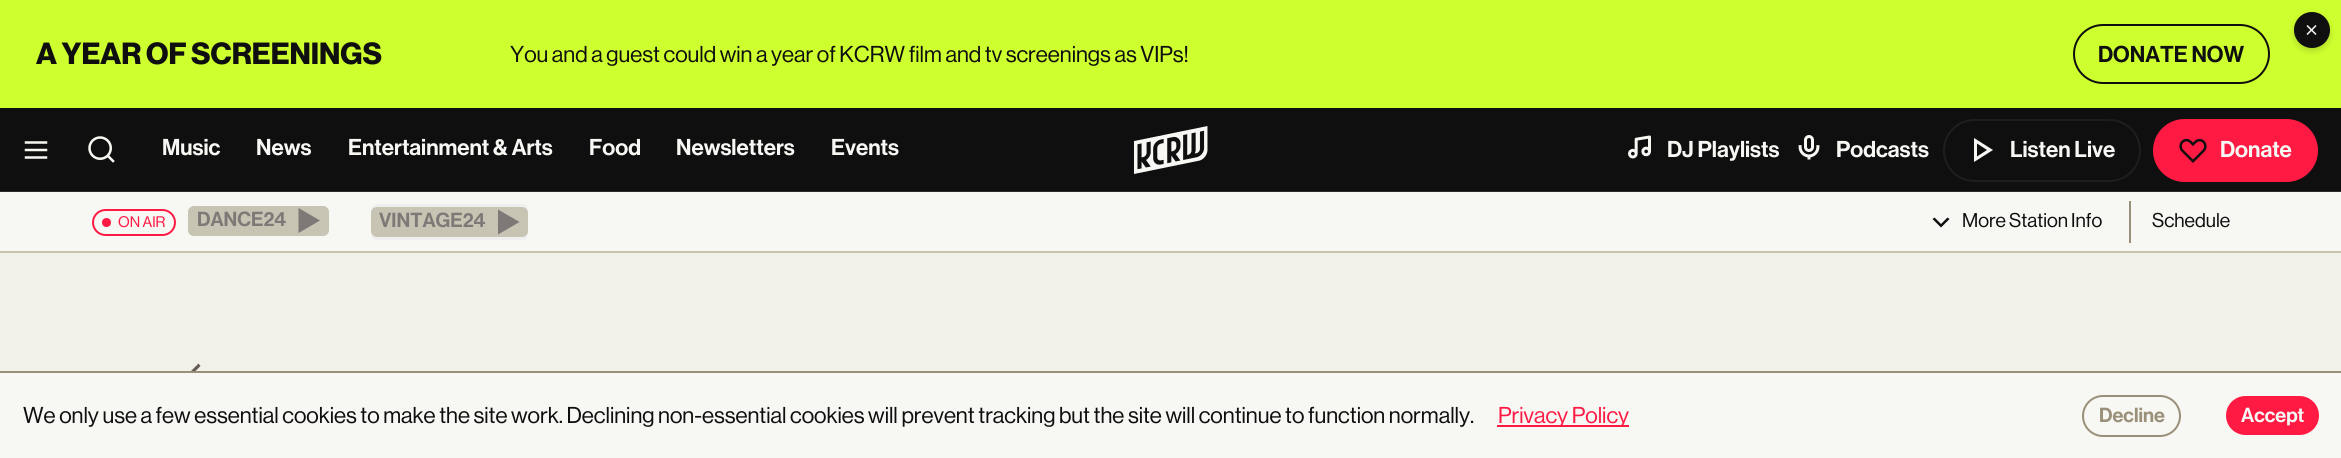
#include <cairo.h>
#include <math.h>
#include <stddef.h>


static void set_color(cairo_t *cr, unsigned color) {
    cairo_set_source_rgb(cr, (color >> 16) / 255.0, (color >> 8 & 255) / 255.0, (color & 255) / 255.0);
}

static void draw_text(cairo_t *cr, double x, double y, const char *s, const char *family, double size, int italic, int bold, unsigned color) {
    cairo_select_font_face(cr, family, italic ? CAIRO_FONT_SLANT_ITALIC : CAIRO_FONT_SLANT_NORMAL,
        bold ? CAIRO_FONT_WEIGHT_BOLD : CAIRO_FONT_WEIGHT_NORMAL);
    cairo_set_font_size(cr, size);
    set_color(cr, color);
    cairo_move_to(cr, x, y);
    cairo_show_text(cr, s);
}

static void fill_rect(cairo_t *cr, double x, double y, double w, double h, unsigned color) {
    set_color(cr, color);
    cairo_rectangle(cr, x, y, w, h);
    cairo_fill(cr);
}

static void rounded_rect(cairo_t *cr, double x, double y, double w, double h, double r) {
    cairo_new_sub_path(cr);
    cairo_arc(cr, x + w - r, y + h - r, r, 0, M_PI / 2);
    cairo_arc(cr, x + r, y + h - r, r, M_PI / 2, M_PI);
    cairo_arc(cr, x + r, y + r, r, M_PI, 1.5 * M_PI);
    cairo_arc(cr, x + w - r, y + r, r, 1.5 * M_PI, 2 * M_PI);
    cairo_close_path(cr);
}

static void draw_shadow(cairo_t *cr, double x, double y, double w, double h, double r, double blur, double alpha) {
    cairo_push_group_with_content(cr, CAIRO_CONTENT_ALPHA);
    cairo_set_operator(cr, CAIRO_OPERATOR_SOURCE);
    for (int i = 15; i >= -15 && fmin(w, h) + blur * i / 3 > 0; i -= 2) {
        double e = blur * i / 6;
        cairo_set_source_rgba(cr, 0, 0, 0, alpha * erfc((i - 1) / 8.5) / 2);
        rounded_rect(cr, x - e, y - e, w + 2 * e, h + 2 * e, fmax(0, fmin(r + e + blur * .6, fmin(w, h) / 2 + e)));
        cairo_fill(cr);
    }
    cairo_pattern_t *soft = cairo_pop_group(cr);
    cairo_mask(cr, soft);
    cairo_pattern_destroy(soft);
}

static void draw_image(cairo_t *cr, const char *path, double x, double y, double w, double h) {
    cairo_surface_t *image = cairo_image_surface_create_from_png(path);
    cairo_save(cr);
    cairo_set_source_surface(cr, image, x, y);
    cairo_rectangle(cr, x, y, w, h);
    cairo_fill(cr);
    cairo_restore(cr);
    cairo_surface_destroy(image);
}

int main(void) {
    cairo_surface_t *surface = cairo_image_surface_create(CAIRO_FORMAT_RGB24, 2341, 458);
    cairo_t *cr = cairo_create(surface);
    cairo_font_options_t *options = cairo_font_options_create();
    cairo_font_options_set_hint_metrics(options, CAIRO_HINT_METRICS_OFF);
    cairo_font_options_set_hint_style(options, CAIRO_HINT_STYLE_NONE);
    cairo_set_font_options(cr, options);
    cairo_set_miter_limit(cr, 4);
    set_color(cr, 0xF1F1EA);
    cairo_paint(cr);
    fill_rect(cr, 0, 0, 2341, 108, 0xCEFF2E);
    draw_text(cr, 36, 64, "A YEAR OF SCREENINGS", "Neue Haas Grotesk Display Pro", 30, 0, 1, 0x100F0F);
    draw_text(cr, 510, 62, "You and a guest could win a year of KCRW film and tv screenings as VIPs!", "Neue Haas Grotesk Display Pro Medium", 22.5, 0, 0, 0x100F0F);
    rounded_rect(cr, 2074, 25, 195, 58, 29);
    set_color(cr, 0x0F0F0F);
    cairo_stroke(cr);
    draw_text(cr, 2098, 62, "DONATE NOW", "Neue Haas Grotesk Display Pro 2 Medium", 22.5, 0, 0, 0x100F0F);
    set_color(cr, 0x0A0A0A);
    draw_shadow(cr, 2294, 15, 36, 36, 18, 3, 0.16);
    set_color(cr, 0x0F0F0F);
    cairo_arc(cr, 2312, 30, 18, 0, 2 * M_PI);
    cairo_fill(cr);
    draw_image(cr, "assets/img1.png", 2306, 25, 11, 10);
    fill_rect(cr, 0, 108, 2341, 83, 0x0F0F0F);
    fill_rect(cr, 0, 191, 2341, 1, 0x2B2B2A);
    draw_image(cr, "assets/img2.png", 24, 141, 24, 18);
    draw_image(cr, "assets/img3.png", 88, 136, 27, 27);
    draw_text(cr, 162, 155, "Music", "Neue Haas Grotesk Display Pro 2 Medium", 22.5, 0, 0, 0xF7F7F3);
    draw_text(cr, 256, 155, "News", "Neue Haas Grotesk Display Pro 2 Medium", 22.5, 0, 0, 0xF7F7F3);
    draw_text(cr, 348, 155, "Entertainment & Arts", "Neue Haas Grotesk Display Pro 2 Medium", 22.5, 0, 0, 0xF7F7F3);
    draw_text(cr, 589, 155, "Food", "Neue Haas Grotesk Display Pro 2 Medium", 22.5, 0, 0, 0xF7F7F3);
    draw_text(cr, 676, 155, "Newsletters", "Neue Haas Grotesk Display Pro 2 Medium", 22.5, 0, 0, 0xF7F7F3);
    draw_text(cr, 831, 155, "Events", "Neue Haas Grotesk Display Pro 2 Medium", 22.5, 0, 0, 0xF7F7F3);
    draw_image(cr, "assets/img4.png", 1134, 126, 74, 48);
    draw_image(cr, "assets/img5.png", 1628, 135, 23, 24);
    draw_text(cr, 1667, 157, "DJ Playlists", "Neue Haas Grotesk Display Pro 2 Medium", 22.5, 0, 0, 0xF7F7F3);
    draw_image(cr, "assets/img6.png", 1798, 135, 22, 25);
    draw_text(cr, 1836, 157, "Podcasts", "Neue Haas Grotesk Display Pro 2 Medium", 22.5, 0, 0, 0xF7F7F3);
    rounded_rect(cr, 1944, 120, 196, 61, 30.5);
    set_color(cr, 0x201E1D);
    cairo_stroke(cr);
    set_color(cr, 0xF7F7F3);
    cairo_set_fill_rule(cr, CAIRO_FILL_RULE_EVEN_ODD);
    cairo_new_path(cr);
    cairo_move_to(cr, 1974, 138);
    cairo_line_to(cr, 1993, 150);
    cairo_line_to(cr, 1974, 162);
    cairo_close_path(cr);
    cairo_move_to(cr, 1977, 143.5);
    cairo_line_to(cr, 1977, 156.5);
    cairo_line_to(cr, 1987, 150);
    cairo_close_path(cr);
    cairo_fill(cr);
    draw_text(cr, 2010, 157, "Listen Live", "Neue Haas Grotesk Display Pro 2 Medium", 22.5, 0, 0, 0xF7F7F3);
    set_color(cr, 0xFF1A44);
    rounded_rect(cr, 2154, 120, 163, 61, 30.5);
    cairo_fill_preserve(cr);
    cairo_stroke(cr);
    draw_image(cr, "assets/img7.png", 2179, 138, 28, 25);
    draw_text(cr, 2220, 157, "Donate", "Neue Haas Grotesk Display Pro 2 Medium", 22.5, 0, 0, 0xF7F7F3);
    fill_rect(cr, 0, 192, 2341, 59, 0xF7F7F3);
    fill_rect(cr, 0, 251, 2341, 2, 0xC7C4AE);
    rounded_rect(cr, 93, 210, 82, 25, 12.5);
    set_color(cr, 0xFF1A44);
    cairo_stroke(cr);
    cairo_arc(cr, 106.5, 222.5, 4.5, 0, 2 * M_PI);
    cairo_fill(cr);
    draw_text(cr, 118, 227, "ON AIR", "Neue Haas Grotesk Display Pro Medium", 15, 0, 0, 0xFF1A44);
    set_color(cr, 0xC7C4B4);
    rounded_rect(cr, 188, 206, 141, 30, 6);
    cairo_fill(cr);
    draw_text(cr, 197, 226, "DANCE24", "Neue Haas Grotesk Display Pro 2 Medium", 20, 0, 0, 0x7E7976);
    cairo_set_fill_rule(cr, CAIRO_FILL_RULE_WINDING);
    cairo_new_path(cr);
    cairo_move_to(cr, 298.5, 208);
    cairo_line_to(cr, 298.5, 233);
    cairo_line_to(cr, 320, 220.5);
    cairo_close_path(cr);
    cairo_fill(cr);
    set_color(cr, 0xEFEFEF);
    rounded_rect(cr, 371, 204, 157, 36, 6);
    cairo_fill(cr);
    set_color(cr, 0xC7C4B4);
    rounded_rect(cr, 371, 207, 157, 30, 6);
    cairo_fill(cr);
    draw_text(cr, 379, 227, "VINTAGE24", "Neue Haas Grotesk Display Pro 2 Medium", 20, 0, 0, 0x7E7976);
    cairo_new_path(cr);
    cairo_move_to(cr, 498, 209.5);
    cairo_line_to(cr, 498, 234.5);
    cairo_line_to(cr, 519.5, 222);
    cairo_close_path(cr);
    cairo_fill(cr);
    set_color(cr, 0x100F0F);
    cairo_set_fill_rule(cr, CAIRO_FILL_RULE_EVEN_ODD);
    cairo_new_path(cr);
    cairo_move_to(cr, 1932.5, 219);
    cairo_line_to(cr, 1934.5, 217.5);
    cairo_line_to(cr, 1941, 224);
    cairo_line_to(cr, 1947.5, 217.5);
    cairo_line_to(cr, 1949.5, 219);
    cairo_line_to(cr, 1941, 227.5);
    cairo_close_path(cr);
    cairo_fill(cr);
    draw_text(cr, 1962, 227, "More Station Info", "Neue Haas Grotesk Display Pro Medium", 19.5, 0, 0, 0x100F0F);
    fill_rect(cr, 2129, 201, 2, 42, 0x9A9079);
    draw_text(cr, 2152, 227, "Schedule", "Neue Haas Grotesk Display Pro Medium", 19.5, 0, 0, 0x100F0F);
    set_color(cr, 0x655C53);
    cairo_new_path(cr);
    cairo_move_to(cr, 198.5, 363.5);
    cairo_line_to(cr, 200.5, 366);
    cairo_line_to(cr, 191.5, 375);
    cairo_line_to(cr, 200.5, 384);
    cairo_line_to(cr, 198.5, 386.5);
    cairo_line_to(cr, 187, 375);
    cairo_close_path(cr);
    cairo_fill(cr);
    fill_rect(cr, 0, 373, 2341, 85, 0xF7F7F3);
    fill_rect(cr, 0, 371, 2341, 2, 0x9A9079);
    draw_text(cr, 23, 423, "We only use a few essential cookies to make the site work. Declining non-essential cookies will prevent tracking but the site will continue to function normally.", "Neue Haas Grotesk Display Pro Medium", 22.5, 0, 0, 0x100F0F);
    fill_rect(cr, 1497, 425, 132, 2, 0xFF1A44);
    draw_text(cr, 1498, 423, "Privacy Policy", "Neue Haas Grotesk Display Pro Medium", 22.5, 0, 0, 0xFF1A44);
    rounded_rect(cr, 2083, 396, 97, 40, 20);
    set_color(cr, 0x9A9079);
    cairo_stroke(cr);
    draw_text(cr, 2099, 422, "Decline", "Neue Haas Grotesk Display Pro 2 Medium", 20, 0, 0, 0x9A9079);
    set_color(cr, 0xFF1A44);
    rounded_rect(cr, 2226, 396, 93, 39, 19.5);
    cairo_fill(cr);
    draw_text(cr, 2241, 422, "Accept", "Neue Haas Grotesk Display Pro 2 Medium", 20, 0, 0, 0xF7F7F3);
    cairo_surface_write_to_png(surface, "output.png");
    cairo_font_options_destroy(options);
    cairo_destroy(cr);
    cairo_surface_destroy(surface);
    return 0;
}
